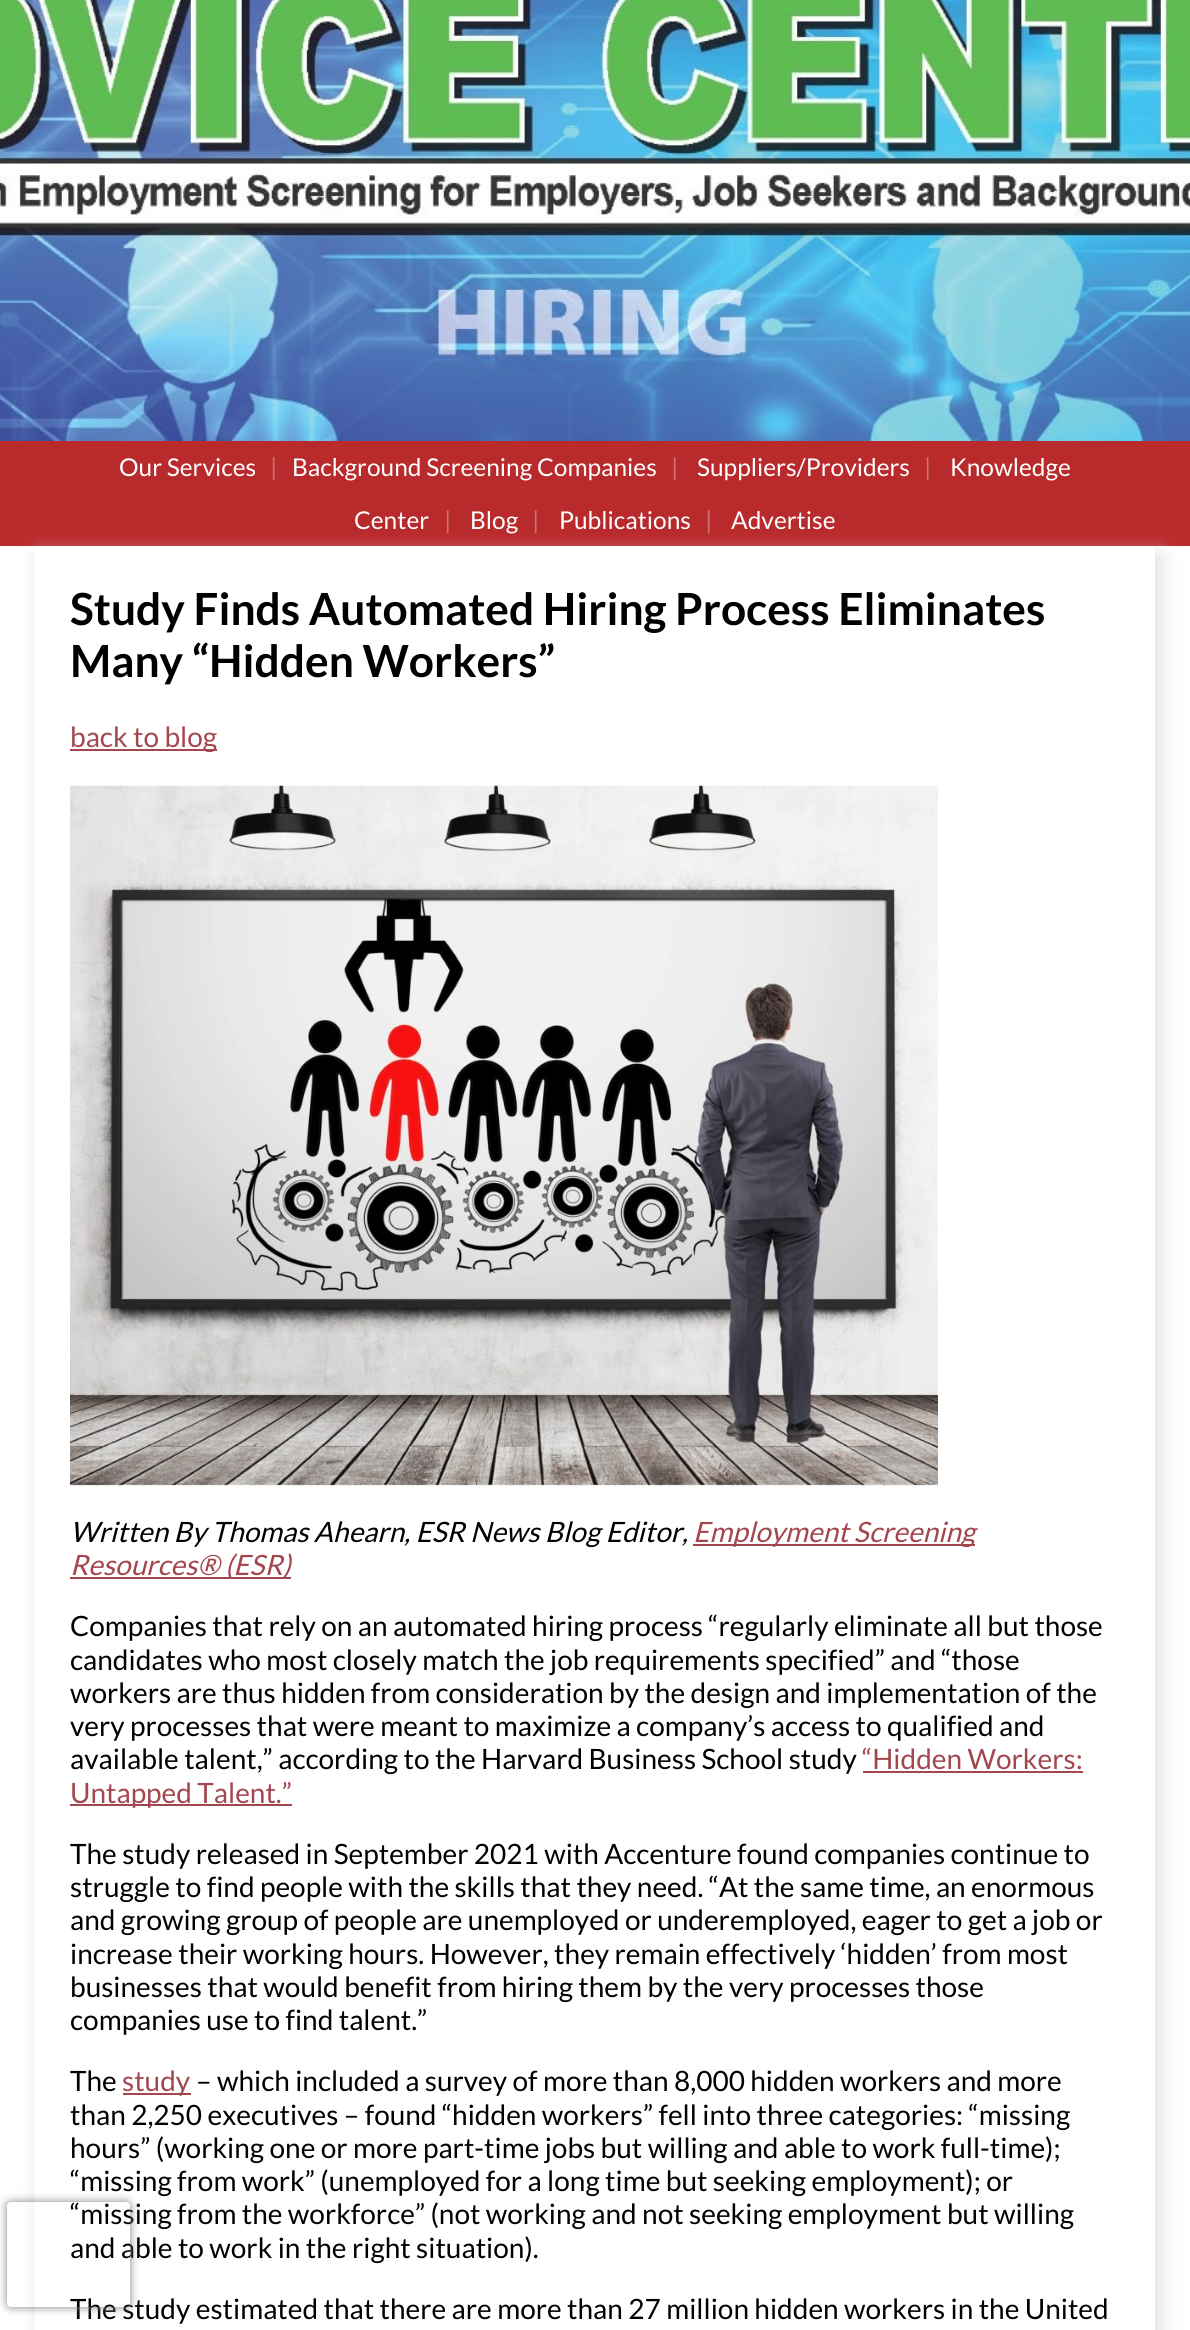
#include <cairo.h>
#include <math.h>
#include <stddef.h>


static void set_color(cairo_t *cr, unsigned color) {
    cairo_set_source_rgb(cr, (color >> 16) / 255.0, (color >> 8 & 255) / 255.0, (color & 255) / 255.0);
}

static void draw_text(cairo_t *cr, double x, double y, const char *s, const char *family, double size, int italic, int bold, unsigned color) {
    cairo_select_font_face(cr, family, italic ? CAIRO_FONT_SLANT_ITALIC : CAIRO_FONT_SLANT_NORMAL,
        bold ? CAIRO_FONT_WEIGHT_BOLD : CAIRO_FONT_WEIGHT_NORMAL);
    cairo_set_font_size(cr, size);
    set_color(cr, color);
    cairo_move_to(cr, x, y);
    cairo_show_text(cr, s);
}

static void fill_rect(cairo_t *cr, double x, double y, double w, double h, unsigned color) {
    set_color(cr, color);
    cairo_rectangle(cr, x, y, w, h);
    cairo_fill(cr);
}

static void rounded_rect(cairo_t *cr, double x, double y, double w, double h, double r) {
    cairo_new_sub_path(cr);
    cairo_arc(cr, x + w - r, y + h - r, r, 0, M_PI / 2);
    cairo_arc(cr, x + r, y + h - r, r, M_PI / 2, M_PI);
    cairo_arc(cr, x + r, y + r, r, M_PI, 1.5 * M_PI);
    cairo_arc(cr, x + w - r, y + r, r, 1.5 * M_PI, 2 * M_PI);
    cairo_close_path(cr);
}

static void draw_shadow(cairo_t *cr, double x, double y, double w, double h, double r, double blur, double alpha) {
    cairo_push_group_with_content(cr, CAIRO_CONTENT_ALPHA);
    cairo_set_operator(cr, CAIRO_OPERATOR_SOURCE);
    for (int i = 15; i >= -15 && fmin(w, h) + blur * i / 3 > 0; i -= 2) {
        double e = blur * i / 6;
        cairo_set_source_rgba(cr, 0, 0, 0, alpha * erfc((i - 1) / 8.5) / 2);
        rounded_rect(cr, x - e, y - e, w + 2 * e, h + 2 * e, fmax(0, fmin(r + e + blur * .6, fmin(w, h) / 2 + e)));
        cairo_fill(cr);
    }
    cairo_pattern_t *soft = cairo_pop_group(cr);
    cairo_mask(cr, soft);
    cairo_pattern_destroy(soft);
}

static void draw_image(cairo_t *cr, const char *path, double x, double y, double w, double h) {
    cairo_surface_t *image = cairo_image_surface_create_from_png(path);
    cairo_save(cr);
    cairo_set_source_surface(cr, image, x, y);
    cairo_rectangle(cr, x, y, w, h);
    cairo_fill(cr);
    cairo_restore(cr);
    cairo_surface_destroy(image);
}

int main(void) {
    cairo_surface_t *surface = cairo_image_surface_create(CAIRO_FORMAT_RGB24, 1190, 2330);
    cairo_t *cr = cairo_create(surface);
    cairo_font_options_t *options = cairo_font_options_create();
    cairo_font_options_set_hint_metrics(options, CAIRO_HINT_METRICS_OFF);
    cairo_font_options_set_hint_style(options, CAIRO_HINT_STYLE_NONE);
    cairo_set_font_options(cr, options);
    cairo_set_miter_limit(cr, 4);
    set_color(cr, 0xFFFFFF);
    cairo_paint(cr);
    draw_image(cr, "assets/img1.png", 0, 0, 1190, 441);
    fill_rect(cr, 0, 441, 1190, 105, 0xB92A2C);
    draw_text(cr, 119, 476, "Our Services", "Lato", 24.5, 0, 0, 0xFFFFFF);
    draw_text(cr, 270, 476, "|", "Lato", 24.5, 0, 0, 0xD17173);
    draw_text(cr, 292, 476, "Background Screening Companies", "Lato", 24.5, 0, 0, 0xFFFFFF);
    draw_text(cr, 671, 476, "|", "Lato", 24.5, 0, 0, 0xD17173);
    draw_text(cr, 697, 476, "Suppliers/Providers", "Lato", 24.5, 0, 0, 0xFFFFFF);
    draw_text(cr, 924, 476, "|", "Lato", 24.5, 0, 0, 0xD17173);
    draw_text(cr, 950, 476, "Knowledge", "Lato", 24.5, 0, 0, 0xFFFFFF);
    draw_text(cr, 354, 529, "Center", "Lato", 24.5, 0, 0, 0xFFFFFF);
    draw_text(cr, 444, 529, "|", "Lato", 24.5, 0, 0, 0xD17173);
    draw_text(cr, 470, 529, "Blog", "Lato", 24.5, 0, 0, 0xFFFFFF);
    draw_text(cr, 532, 529, "|", "Lato", 24.5, 0, 0, 0xD17173);
    draw_text(cr, 559, 529, "Publications", "Lato", 24.5, 0, 0, 0xFFFFFF);
    draw_text(cr, 705, 529, "|", "Lato", 24.5, 0, 0, 0xD17173);
    draw_text(cr, 731, 529, "Advertise", "Lato", 24.5, 0, 0, 0xFFFFFF);
    cairo_save(cr);
    cairo_set_fill_rule(cr, CAIRO_FILL_RULE_EVEN_ODD);
    cairo_new_path(cr);
    cairo_move_to(cr, 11, 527);
    cairo_line_to(cr, 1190, 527);
    cairo_line_to(cr, 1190, 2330);
    cairo_line_to(cr, 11, 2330);
    cairo_close_path(cr);
    cairo_move_to(cr, 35, 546);
    cairo_line_to(cr, 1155, 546);
    cairo_line_to(cr, 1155, 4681);
    cairo_line_to(cr, 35, 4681);
    cairo_close_path(cr);
    cairo_clip(cr);
    set_color(cr, 0xE6DFE6);
    draw_shadow(cr, 39, 555, 1123, 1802, 0, 9, 1);
    cairo_restore(cr);
    draw_text(cr, 70, 625, "Study Finds Automated Hiring Process Eliminates", "Lato", 44.3, 0, 1, 0x000000);
    draw_text(cr, 70, 677, "Many “Hidden Workers”", "Lato", 44.3, 0, 1, 0x000000);
    fill_rect(cr, 70, 749, 147, 2, 0xA3464E);
    draw_text(cr, 70, 747, "back to blog", "Lato", 28, 0, 0, 0xA3464E);
    draw_image(cr, "assets/img2.png", 70, 785, 868, 701);
    draw_text(cr, 70, 1542, "Written By Thomas Ahearn, ESR News Blog Editor,", "Lato", 28, 1, 0, 0x000000);
    fill_rect(cr, 693, 1544, 282, 2, 0xA3464E);
    draw_text(cr, 693, 1542, "Employment Screening", "Lato", 28, 1, 0, 0xA3464E);
    fill_rect(cr, 70, 1577, 221, 2, 0xA3464E);
    draw_text(cr, 70, 1575, "Resources® (ESR)", "Lato", 28, 1, 0, 0xA3464E);
    draw_text(cr, 70, 1636, "Companies that rely on an automated hiring process “regularly eliminate all but those", "Lato", 28, 0, 0, 0x000000);
    draw_text(cr, 70, 1670, "candidates who most closely match the job requirements specified” and “those", "Lato", 28, 0, 0, 0x000000);
    draw_text(cr, 70, 1703, "workers are thus hidden from consideration by the design and implementation of the", "Lato", 28, 0, 0, 0x000000);
    draw_text(cr, 70, 1736, "very processes that were meant to maximize a company’s access to qualified and", "Lato", 28, 0, 0, 0x000000);
    draw_text(cr, 70, 1769, "available talent,” according to the Harvard Business School study", "Lato", 28, 0, 0, 0x000000);
    draw_text(cr, 862, 1769, "“Hidden Workers:", "Lato", 28, 0, 0, 0xA3464E);
    fill_rect(cr, 863, 1771, 220, 2, 0xA3464E);
    fill_rect(cr, 70, 1804, 222, 2, 0xA3464E);
    draw_text(cr, 70, 1803, "Untapped Talent.”", "Lato", 28, 0, 0, 0xA3464E);
    draw_text(cr, 70, 1864, "The study released in September 2021 with Accenture found companies continue to", "Lato", 28, 0, 0, 0x000000);
    draw_text(cr, 70, 1897, "struggle to find people with the skills that they need. “At the same time, an enormous", "Lato", 28, 0, 0, 0x000000);
    draw_text(cr, 70, 1930, "and growing group of people are unemployed or underemployed, eager to get a job or", "Lato", 28, 0, 0, 0x000000);
    draw_text(cr, 70, 1964, "increase their working hours. However, they remain effectively ‘hidden’ from most", "Lato", 28, 0, 0, 0x000000);
    draw_text(cr, 70, 1997, "businesses that would benefit from hiring them by the very processes those", "Lato", 28, 0, 0, 0x000000);
    draw_text(cr, 70, 2030, "companies use to find talent.”", "Lato", 28, 0, 0, 0x000000);
    draw_text(cr, 70, 2091, "The", "Lato", 28, 0, 0, 0x000000);
    fill_rect(cr, 123, 2093, 68, 2, 0xA3464E);
    draw_text(cr, 122, 2091, "study", "Lato", 28, 0, 0, 0xA3464E);
    draw_text(cr, 196, 2091, "– which included a survey of more than 8,000 hidden workers and more", "Lato", 28, 0, 0, 0x000000);
    draw_text(cr, 70, 2125, "than 2,250 executives – found “hidden workers” fell into three categories: “missing", "Lato", 28, 0, 0, 0x000000);
    draw_text(cr, 70, 2158, "hours” (working one or more part-time jobs but willing and able to work full-time);", "Lato", 28, 0, 0, 0x000000);
    draw_text(cr, 70, 2191, "“missing from work” (unemployed for a long time but seeking employment); or", "Lato", 28, 0, 0, 0x000000);
    draw_text(cr, 70, 2224, "“missing from the workforce” (not working and not seeking employment but willing", "Lato", 28, 0, 0, 0x000000);
    draw_text(cr, 70, 2258, "and able to work in the right situation).", "Lato", 28, 0, 0, 0x000000);
    draw_text(cr, 70, 2319, "The study estimated that there are more than 27 million hidden workers in the United", "Lato", 28, 0, 0, 0x000000);
    cairo_save(cr);
    cairo_set_fill_rule(cr, CAIRO_FILL_RULE_EVEN_ODD);
    cairo_new_path(cr);
    cairo_move_to(cr, 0, 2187);
    cairo_line_to(cr, 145, 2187);
    cairo_line_to(cr, 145, 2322);
    cairo_line_to(cr, 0, 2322);
    cairo_close_path(cr);
    cairo_move_to(cr, 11, 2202);
    cairo_line_to(cr, 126, 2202);
    cairo_curve_to(cr, 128, 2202, 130, 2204, 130, 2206);
    cairo_line_to(cr, 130, 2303);
    cairo_curve_to(cr, 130, 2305, 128, 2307, 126, 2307);
    cairo_line_to(cr, 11, 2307);
    cairo_curve_to(cr, 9, 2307, 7, 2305, 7, 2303);
    cairo_line_to(cr, 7, 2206);
    cairo_curve_to(cr, 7, 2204, 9, 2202, 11, 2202);
    cairo_close_path(cr);
    cairo_clip(cr);
    set_color(cr, 0x808080);
    draw_shadow(cr, 7, 2202, 123, 105, 4, 4.5, 1);
    cairo_restore(cr);
    cairo_surface_write_to_png(surface, "output.png");
    cairo_font_options_destroy(options);
    cairo_destroy(cr);
    cairo_surface_destroy(surface);
    return 0;
}
